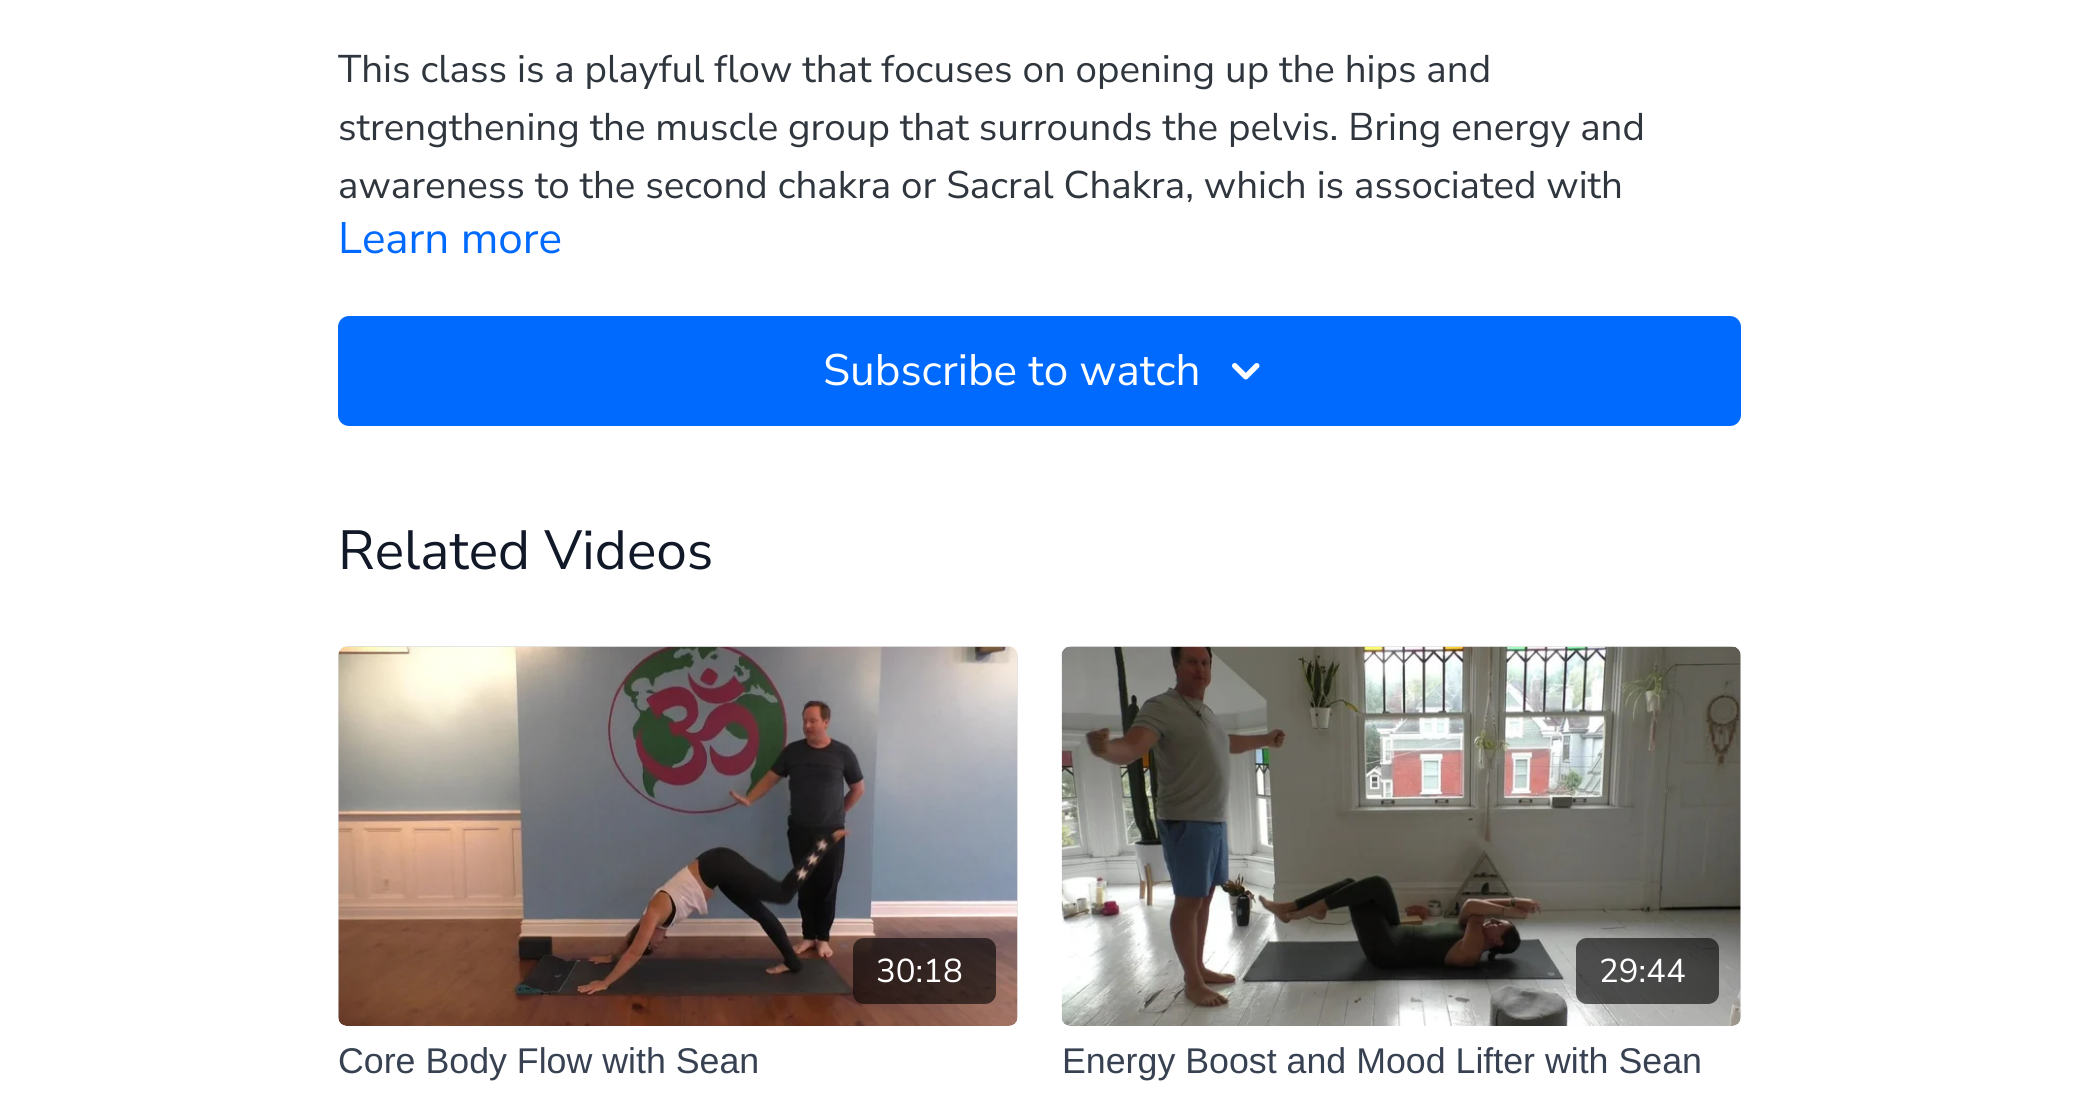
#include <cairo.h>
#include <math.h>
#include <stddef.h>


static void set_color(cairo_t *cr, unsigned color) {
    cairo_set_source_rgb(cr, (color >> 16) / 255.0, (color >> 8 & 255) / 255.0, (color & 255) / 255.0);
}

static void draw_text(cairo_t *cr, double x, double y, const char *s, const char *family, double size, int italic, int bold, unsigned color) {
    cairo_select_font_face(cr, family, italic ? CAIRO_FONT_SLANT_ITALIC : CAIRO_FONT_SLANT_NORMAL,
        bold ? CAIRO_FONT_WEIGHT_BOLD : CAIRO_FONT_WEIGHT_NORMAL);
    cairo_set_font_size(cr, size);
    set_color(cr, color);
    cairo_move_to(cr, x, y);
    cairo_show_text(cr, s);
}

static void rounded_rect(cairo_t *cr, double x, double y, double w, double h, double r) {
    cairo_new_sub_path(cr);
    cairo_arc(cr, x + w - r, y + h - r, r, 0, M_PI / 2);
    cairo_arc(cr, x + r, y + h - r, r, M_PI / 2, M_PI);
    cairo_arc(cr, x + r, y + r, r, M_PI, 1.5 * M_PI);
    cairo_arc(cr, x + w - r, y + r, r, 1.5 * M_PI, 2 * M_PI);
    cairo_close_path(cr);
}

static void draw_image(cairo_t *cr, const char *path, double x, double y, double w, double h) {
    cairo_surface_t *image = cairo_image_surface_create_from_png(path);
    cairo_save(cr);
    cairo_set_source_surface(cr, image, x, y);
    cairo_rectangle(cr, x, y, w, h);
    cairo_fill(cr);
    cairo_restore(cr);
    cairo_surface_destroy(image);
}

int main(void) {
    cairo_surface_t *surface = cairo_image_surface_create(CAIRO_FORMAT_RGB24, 2077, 1109);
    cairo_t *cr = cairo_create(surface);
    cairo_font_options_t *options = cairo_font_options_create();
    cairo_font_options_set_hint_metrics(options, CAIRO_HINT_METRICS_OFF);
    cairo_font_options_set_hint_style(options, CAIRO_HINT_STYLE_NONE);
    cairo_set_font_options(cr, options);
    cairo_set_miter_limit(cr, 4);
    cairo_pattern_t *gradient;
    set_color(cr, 0xFFFFFF);
    cairo_paint(cr);
    draw_text(cr, 338, 82, "This class is a playful flow that focuses on opening up the hips and", "Nunito Sans", 38.5, 0, 0, 0x30363E);
    draw_text(cr, 338, 140, "strengthening the muscle group that surrounds the pelvis. Bring energy and", "Nunito Sans", 38.5, 0, 0, 0x30363E);
    draw_text(cr, 338, 198, "awareness to the second chakra or Sacral Chakra, which is associated with", "Nunito Sans", 38.5, 0, 0, 0x30363E);
    draw_text(cr, 338, 253, "Learn more", "Nunito Sans", 44, 0, 0, 0x006AFF);
    rounded_rect(cr, 338, 316, 1403, 110, 11);
    cairo_fill(cr);
    draw_text(cr, 823, 385, "Subscribe to watch", "Nunito Sans", 44, 0, 0, 0xFFFFFF);
    draw_image(cr, "assets/img1.png", 1232, 363, 28, 17);
    draw_text(cr, 338, 569, "Related Videos", "Nunito Sans", 55, 0, 0, 0x111827);
    gradient = cairo_pattern_create_linear(338, 836, 1018, 836);
    cairo_pattern_add_color_stop_rgba(gradient, 0.08, 0.871, 0.871, 0.871, 1);
    cairo_pattern_add_color_stop_rgba(gradient, 0.18, 0.882, 0.882, 0.882, 1);
    cairo_pattern_add_color_stop_rgba(gradient, 0.33, 0.894, 0.894, 0.894, 1);
    cairo_set_source(cr, gradient);
    cairo_pattern_destroy(gradient);
    rounded_rect(cr, 338, 646, 680, 380, 11);
    cairo_fill(cr);
    draw_image(cr, "assets/img2.png", 338, 646, 680, 380);
    cairo_set_source_rgba(cr, 0, 0, 0, 0.6);
    rounded_rect(cr, 853, 938, 143, 66, 11);
    cairo_fill(cr);
    draw_text(cr, 876, 982, "30:18", "Nunito Sans", 33, 0, 0, 0xFFFFFF);
    draw_text(cr, 338, 1073, "Core Body Flow with Sean", "Liberation Sans", 35.75, 0, 0, 0x374151);
    gradient = cairo_pattern_create_linear(1062, 836, 1741, 836);
    cairo_pattern_add_color_stop_rgba(gradient, 0.08, 0.871, 0.871, 0.871, 1);
    cairo_pattern_add_color_stop_rgba(gradient, 0.18, 0.882, 0.882, 0.882, 1);
    cairo_pattern_add_color_stop_rgba(gradient, 0.33, 0.894, 0.894, 0.894, 1);
    cairo_set_source(cr, gradient);
    cairo_pattern_destroy(gradient);
    rounded_rect(cr, 1062, 646, 679, 380, 11);
    cairo_fill(cr);
    draw_image(cr, "assets/img3.png", 1061, 646, 680, 380);
    cairo_set_source_rgba(cr, 0, 0, 0, 0.6);
    rounded_rect(cr, 1576, 938, 143, 66, 11);
    cairo_fill(cr);
    draw_text(cr, 1599, 982, "29:44", "Nunito Sans", 33, 0, 0, 0xFFFFFF);
    draw_text(cr, 1062, 1073, "Energy Boost and Mood Lifter with Sean", "Liberation Sans", 35.75, 0, 0, 0x374151);
    cairo_surface_write_to_png(surface, "output.png");
    cairo_font_options_destroy(options);
    cairo_destroy(cr);
    cairo_surface_destroy(surface);
    return 0;
}
